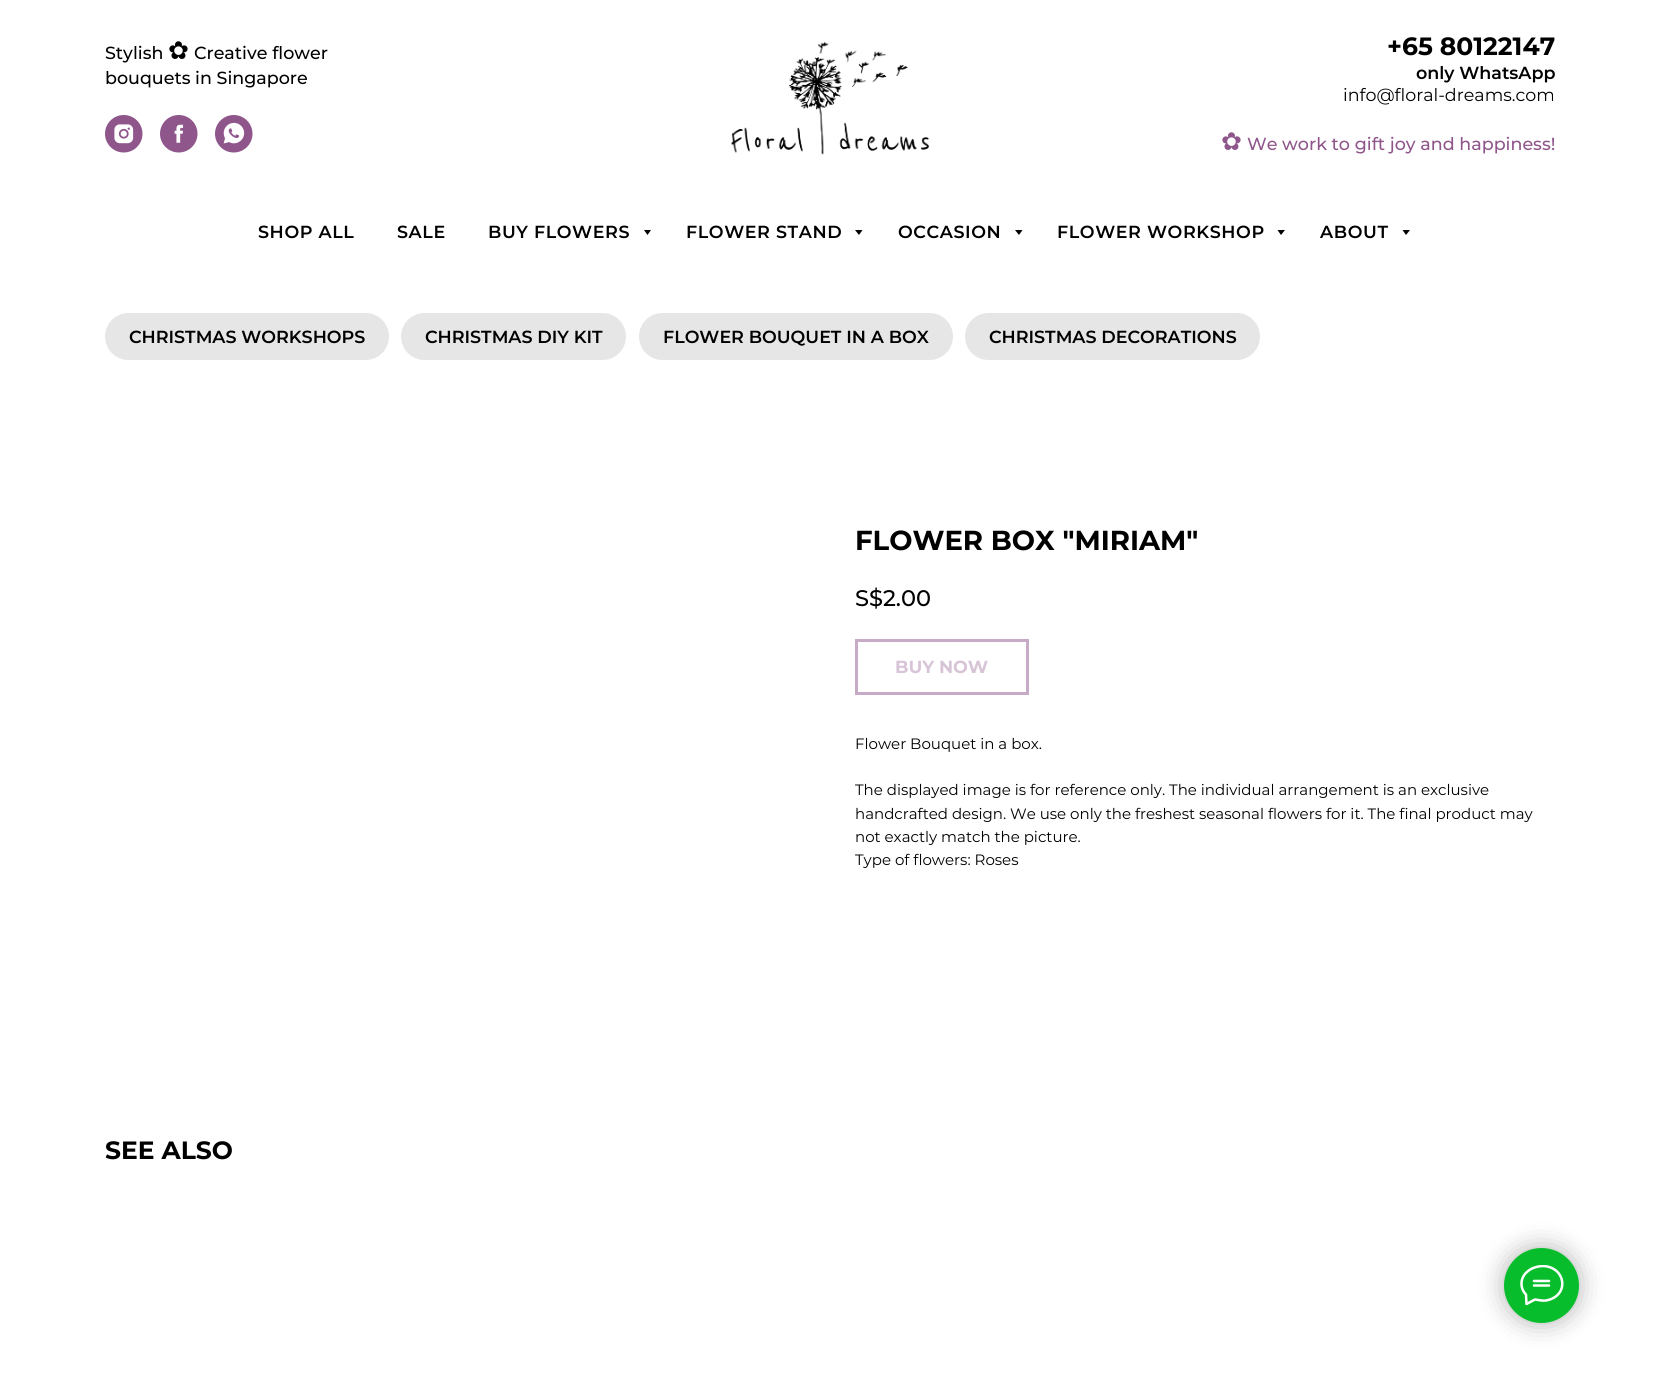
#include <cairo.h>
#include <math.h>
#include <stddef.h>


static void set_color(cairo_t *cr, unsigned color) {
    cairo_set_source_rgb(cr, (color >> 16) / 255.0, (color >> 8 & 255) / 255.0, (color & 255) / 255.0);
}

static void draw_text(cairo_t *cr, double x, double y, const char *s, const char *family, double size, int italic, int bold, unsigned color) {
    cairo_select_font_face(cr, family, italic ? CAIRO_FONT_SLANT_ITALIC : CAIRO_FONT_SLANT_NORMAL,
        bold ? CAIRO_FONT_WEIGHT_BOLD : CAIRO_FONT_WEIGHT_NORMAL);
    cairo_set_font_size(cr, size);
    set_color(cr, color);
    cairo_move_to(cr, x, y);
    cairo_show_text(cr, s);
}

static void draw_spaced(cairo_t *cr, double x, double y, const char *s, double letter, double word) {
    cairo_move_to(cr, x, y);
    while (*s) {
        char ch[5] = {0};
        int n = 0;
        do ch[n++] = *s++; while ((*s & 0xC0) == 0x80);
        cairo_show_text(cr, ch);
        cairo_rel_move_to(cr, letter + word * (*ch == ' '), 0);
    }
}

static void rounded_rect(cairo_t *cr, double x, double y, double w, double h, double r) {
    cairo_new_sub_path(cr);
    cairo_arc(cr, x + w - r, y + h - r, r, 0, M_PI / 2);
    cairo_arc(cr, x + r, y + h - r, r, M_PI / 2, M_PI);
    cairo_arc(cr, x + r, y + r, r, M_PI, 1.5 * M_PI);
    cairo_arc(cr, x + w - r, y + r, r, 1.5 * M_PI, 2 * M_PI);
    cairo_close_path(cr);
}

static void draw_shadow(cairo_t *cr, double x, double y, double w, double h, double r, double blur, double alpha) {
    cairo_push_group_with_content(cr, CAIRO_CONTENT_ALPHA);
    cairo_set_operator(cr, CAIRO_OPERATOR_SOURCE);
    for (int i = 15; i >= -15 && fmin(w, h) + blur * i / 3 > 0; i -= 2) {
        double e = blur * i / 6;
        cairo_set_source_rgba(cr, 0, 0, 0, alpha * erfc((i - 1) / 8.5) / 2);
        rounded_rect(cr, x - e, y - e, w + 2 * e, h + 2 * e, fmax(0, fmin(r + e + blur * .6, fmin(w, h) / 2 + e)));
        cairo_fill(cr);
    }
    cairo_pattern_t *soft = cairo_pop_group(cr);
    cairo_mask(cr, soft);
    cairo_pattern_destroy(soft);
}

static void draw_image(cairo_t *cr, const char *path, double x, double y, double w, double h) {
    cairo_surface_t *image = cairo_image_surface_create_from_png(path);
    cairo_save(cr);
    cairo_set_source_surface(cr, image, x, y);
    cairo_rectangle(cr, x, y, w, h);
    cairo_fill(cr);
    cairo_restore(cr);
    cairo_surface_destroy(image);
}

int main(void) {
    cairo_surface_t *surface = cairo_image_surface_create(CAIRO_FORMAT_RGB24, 1660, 1384);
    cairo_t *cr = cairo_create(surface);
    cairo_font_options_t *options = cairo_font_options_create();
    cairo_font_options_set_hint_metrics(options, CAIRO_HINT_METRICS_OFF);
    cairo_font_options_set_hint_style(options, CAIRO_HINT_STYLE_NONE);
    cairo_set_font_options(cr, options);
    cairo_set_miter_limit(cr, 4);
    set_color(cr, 0xFFFFFF);
    cairo_paint(cr);
    draw_text(cr, 105, 59, "Stylish", "Montserrat Medium", 17.5, 0, 0, 0x000000);
    draw_text(cr, 168, 59, "✿", "DejaVu Sans", 25, 0, 0, 0x000000);
    draw_text(cr, 194, 59, "Creative flower", "Montserrat Medium", 17.5, 0, 0, 0x000000);
    draw_text(cr, 105, 84, "bouquets in Singapore", "Montserrat Medium", 17.5, 0, 0, 0x000000);
    draw_image(cr, "assets/img1.png", 105, 115, 38, 38);
    draw_image(cr, "assets/img2.png", 160, 115, 38, 38);
    draw_image(cr, "assets/img3.png", 215, 115, 38, 38);
    draw_text(cr, 1387, 55, "+65 80122147", "Montserrat", 25, 0, 1, 0x000000);
    draw_text(cr, 1416, 79, "only WhatsApp", "Montserrat SemiBold", 17.5, 0, 0, 0x000000);
    draw_text(cr, 1343, 101, "info@floral-dreams.com", "Montserrat", 17.5, 0, 0, 0x000000);
    draw_text(cr, 1221, 150, "✿", "DejaVu Sans", 25, 0, 0, 0x8F568C);
    draw_text(cr, 1247, 150, "We work to gift joy and happiness!", "Montserrat Medium", 17.5, 0, 0, 0x8F568C);
    draw_image(cr, "assets/img4.png", 731, 41, 199, 114);
    cairo_select_font_face(cr, "Montserrat SemiBold", CAIRO_FONT_SLANT_NORMAL, CAIRO_FONT_WEIGHT_NORMAL);
    set_color(cr, 0x000000);
    draw_spaced(cr, 258, 238, "SHOP ALL", 0.6, 0);
    draw_spaced(cr, 397, 238, "SALE", 0.6, 0);
    draw_spaced(cr, 488, 238, "BUY FLOWERS", 0.6, 0);
    cairo_new_path(cr);
    cairo_move_to(cr, 644, 230);
    cairo_line_to(cr, 651, 230);
    cairo_line_to(cr, 647.5, 235);
    cairo_close_path(cr);
    cairo_fill(cr);
    draw_spaced(cr, 686, 238, "FLOWER STAND", 0.6, 0);
    cairo_new_path(cr);
    cairo_move_to(cr, 855, 230);
    cairo_line_to(cr, 862.5, 230);
    cairo_line_to(cr, 859, 235);
    cairo_close_path(cr);
    cairo_fill(cr);
    draw_spaced(cr, 898, 238, "OCCASION", 0.6, 0);
    cairo_new_path(cr);
    cairo_move_to(cr, 1015, 230);
    cairo_line_to(cr, 1022.5, 230);
    cairo_line_to(cr, 1019, 235);
    cairo_close_path(cr);
    cairo_fill(cr);
    draw_spaced(cr, 1057, 238, "FLOWER WORKSHOP", 0.6, 0);
    cairo_new_path(cr);
    cairo_move_to(cr, 1277.5, 230);
    cairo_line_to(cr, 1285, 230);
    cairo_line_to(cr, 1281, 235);
    cairo_close_path(cr);
    cairo_fill(cr);
    draw_spaced(cr, 1320, 238, "ABOUT", 0.6, 0);
    cairo_new_path(cr);
    cairo_move_to(cr, 1402.5, 230);
    cairo_line_to(cr, 1410, 230);
    cairo_line_to(cr, 1406, 235);
    cairo_close_path(cr);
    cairo_fill(cr);
    set_color(cr, 0xE6E6E6);
    rounded_rect(cr, 105, 313, 284, 47, 23.5);
    cairo_fill(cr);
    draw_text(cr, 129, 343, "CHRISTMAS WORKSHOPS", "Montserrat SemiBold", 17.5, 0, 0, 0x000000);
    set_color(cr, 0xE6E6E6);
    rounded_rect(cr, 401, 313, 225, 47, 23.5);
    cairo_fill(cr);
    draw_text(cr, 425, 343, "CHRISTMAS DIY KIT", "Montserrat SemiBold", 17.5, 0, 0, 0x000000);
    set_color(cr, 0xE6E6E6);
    rounded_rect(cr, 639, 313, 314, 47, 23.5);
    cairo_fill(cr);
    draw_text(cr, 663, 343, "FLOWER BOUQUET IN A BOX", "Montserrat SemiBold", 17.5, 0, 0, 0x000000);
    set_color(cr, 0xE6E6E6);
    rounded_rect(cr, 965, 313, 295, 47, 23.5);
    cairo_fill(cr);
    draw_text(cr, 989, 343, "CHRISTMAS DECORATIONS", "Montserrat SemiBold", 17.5, 0, 0, 0x000000);
    draw_text(cr, 855, 550, "FLOWER BOX \"MIRIAM\"", "Montserrat", 27.5, 0, 1, 0x000000);
    draw_text(cr, 855, 606, "S$2.00", "Montserrat Medium", 22.5, 0, 0, 0x000000);
    cairo_rectangle(cr, 856.5, 640.5, 171, 53);
    set_color(cr, 0xC7ABC6);
    cairo_set_line_width(cr, 3);
    cairo_stroke(cr);
    draw_text(cr, 895, 673, "BUY NOW", "Montserrat", 17.5, 0, 1, 0xD8C4D7);
    draw_text(cr, 855, 749, "Flower Bouquet in a box.", "Montserrat", 15, 0, 0, 0x000000);
    draw_text(cr, 855, 795, "The displayed image is for reference only. The individual arrangement is an exclusive", "Montserrat", 15, 0, 0, 0x000000);
    draw_text(cr, 855, 819, "handcrafted design. We use only the freshest seasonal flowers for it. The final product may", "Montserrat", 15, 0, 0, 0x000000);
    draw_text(cr, 855, 842, "not exactly match the picture.", "Montserrat", 15, 0, 0, 0x000000);
    draw_text(cr, 855, 865, "Type of flowers: Roses", "Montserrat", 15, 0, 0, 0x000000);
    draw_text(cr, 105, 1159, "SEE ALSO", "Montserrat", 25, 0, 1, 0x000000);
    set_color(cr, 0x000000);
    draw_shadow(cr, 1504, 1248, 75, 75, 37.5, 12.5, 0.3);
    set_color(cr, 0x07BD2C);
    cairo_arc(cr, 1541.5, 1285.5, 37.5, 0, 2 * M_PI);
    cairo_fill(cr);
    cairo_save(cr);
    cairo_rectangle(cr, 1520, 1265, 44, 40);
    cairo_clip(cr);
    cairo_new_path(cr);
    cairo_move_to(cr, 1534, 1281);
    cairo_line_to(cr, 1549, 1281);
    cairo_move_to(cr, 1534, 1285.5);
    cairo_line_to(cr, 1549, 1285.5);
    cairo_move_to(cr, 1526, 1294.5);
    cairo_curve_to(cr, 1519.5, 1288, 1520, 1277.5, 1527.5, 1271.5);
    cairo_curve_to(cr, 1531.5, 1268, 1536.5, 1266.5, 1542, 1266);
    cairo_curve_to(cr, 1566, 1266, 1570.5, 1296, 1546, 1300.5);
    cairo_curve_to(cr, 1542, 1301, 1539, 1300, 1535, 1299.5);
    cairo_line_to(cr, 1526.5, 1304);
    cairo_close_path(cr);
    set_color(cr, 0xFFFFFF);
    cairo_set_line_width(cr, 2.5);
    cairo_set_line_cap(cr, CAIRO_LINE_CAP_ROUND);
    cairo_set_line_join(cr, CAIRO_LINE_JOIN_ROUND);
    cairo_stroke(cr);
    cairo_restore(cr);
    cairo_surface_write_to_png(surface, "output.png");
    cairo_font_options_destroy(options);
    cairo_destroy(cr);
    cairo_surface_destroy(surface);
    return 0;
}
